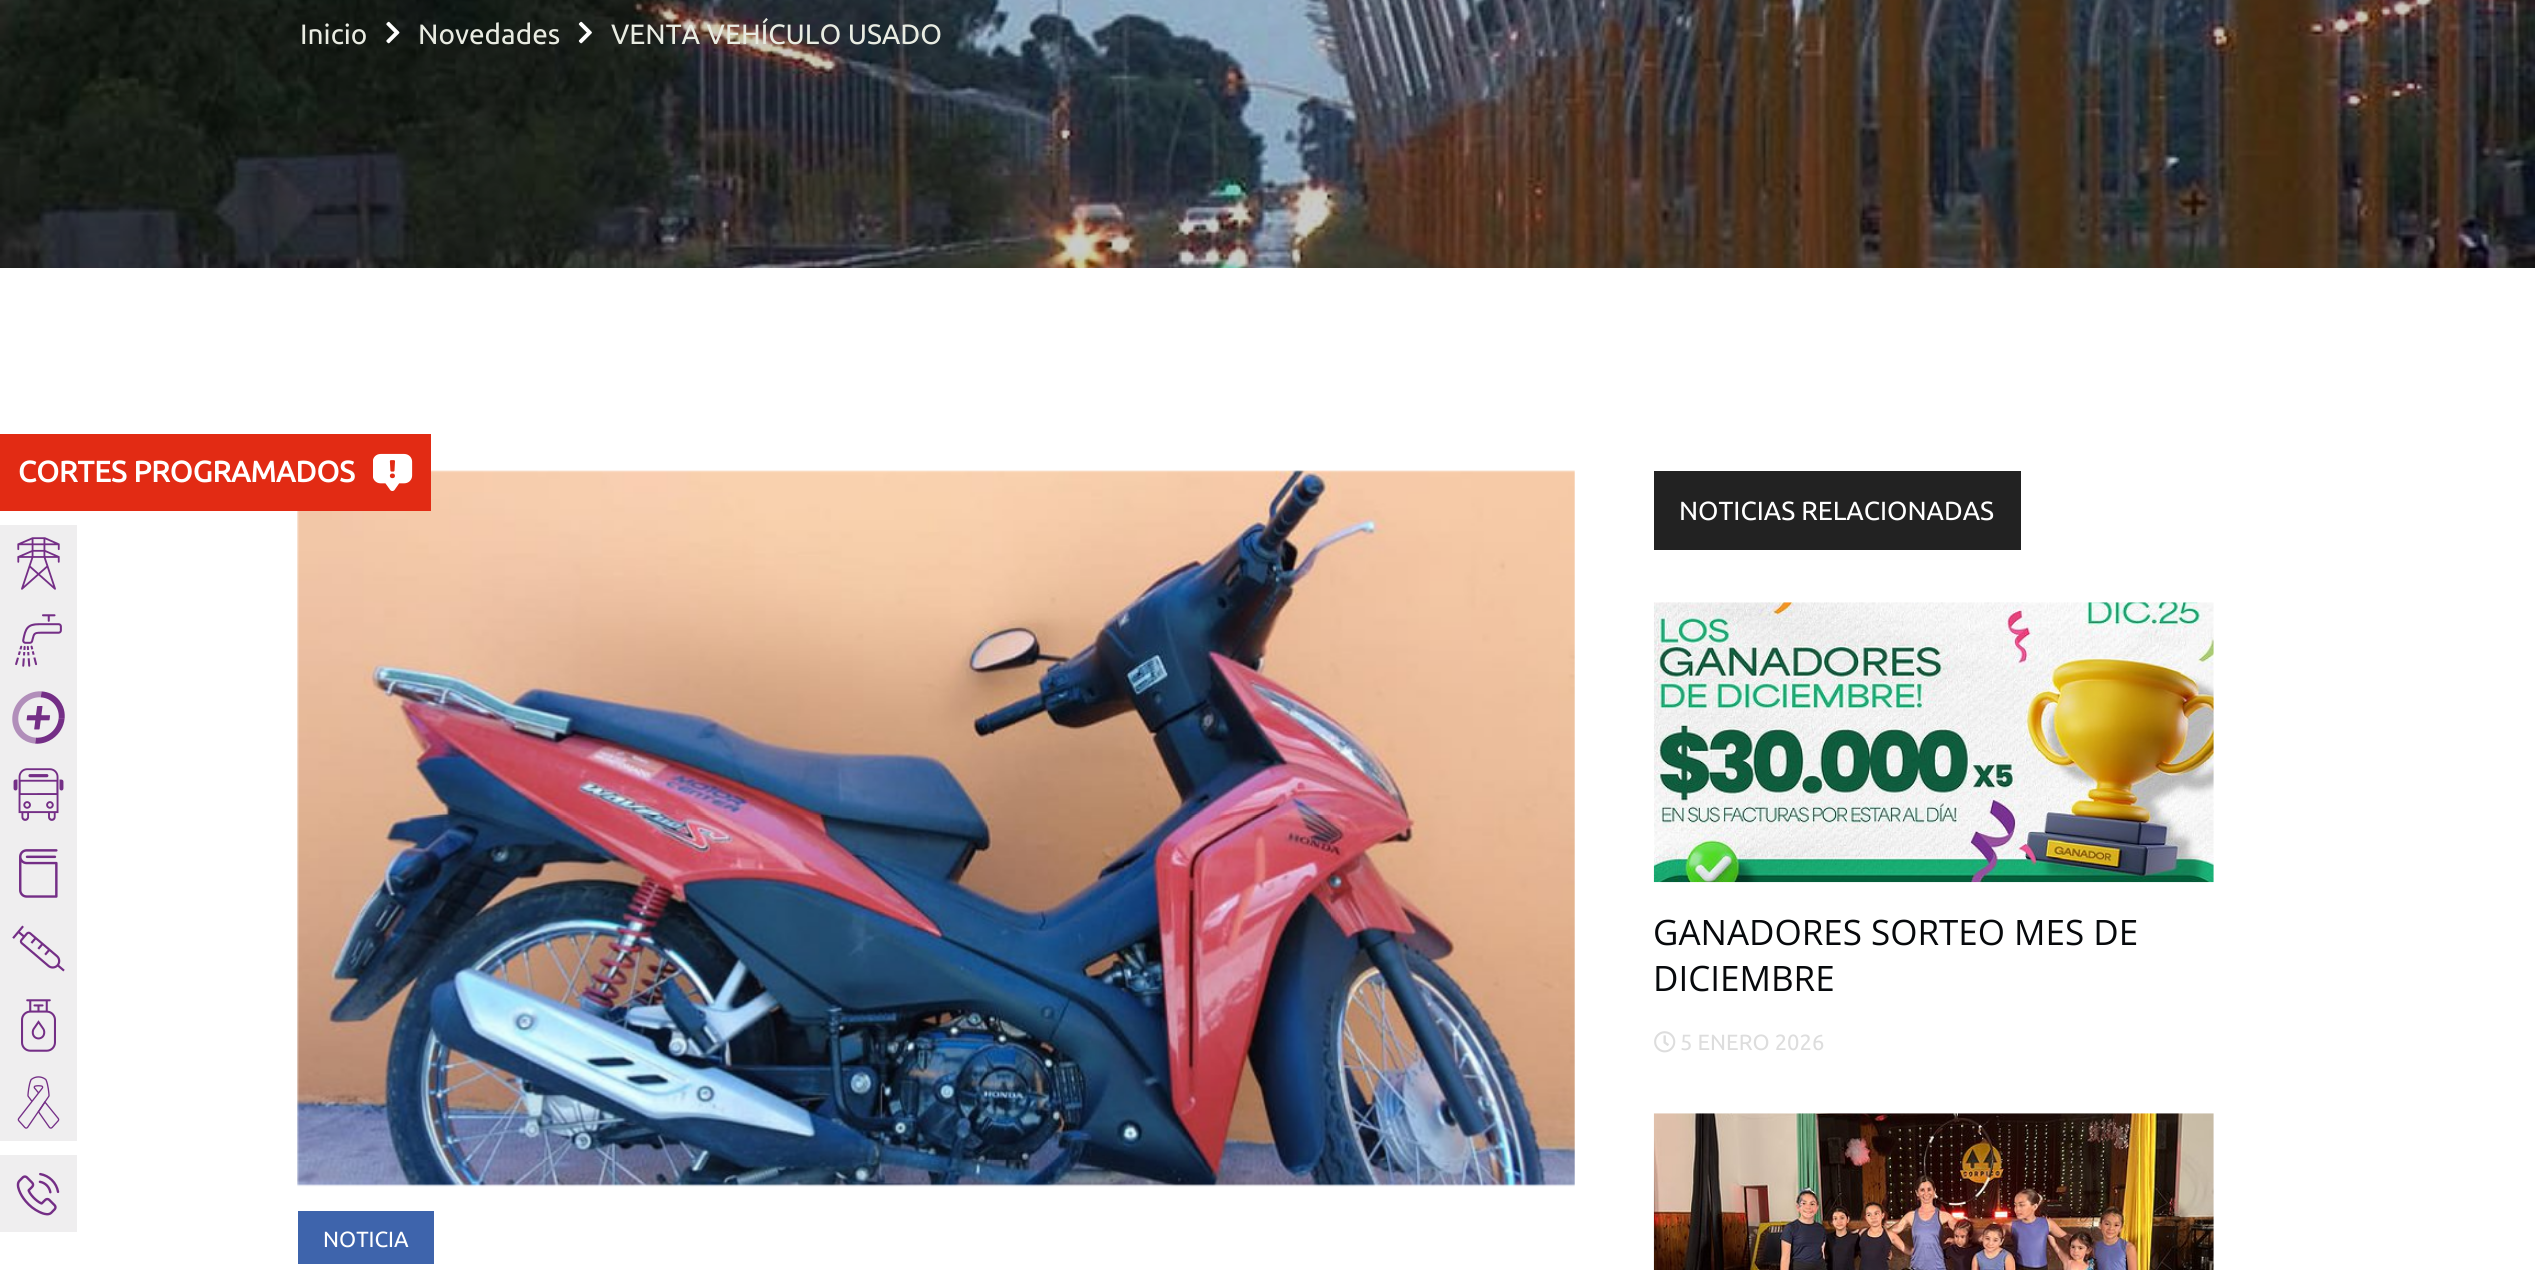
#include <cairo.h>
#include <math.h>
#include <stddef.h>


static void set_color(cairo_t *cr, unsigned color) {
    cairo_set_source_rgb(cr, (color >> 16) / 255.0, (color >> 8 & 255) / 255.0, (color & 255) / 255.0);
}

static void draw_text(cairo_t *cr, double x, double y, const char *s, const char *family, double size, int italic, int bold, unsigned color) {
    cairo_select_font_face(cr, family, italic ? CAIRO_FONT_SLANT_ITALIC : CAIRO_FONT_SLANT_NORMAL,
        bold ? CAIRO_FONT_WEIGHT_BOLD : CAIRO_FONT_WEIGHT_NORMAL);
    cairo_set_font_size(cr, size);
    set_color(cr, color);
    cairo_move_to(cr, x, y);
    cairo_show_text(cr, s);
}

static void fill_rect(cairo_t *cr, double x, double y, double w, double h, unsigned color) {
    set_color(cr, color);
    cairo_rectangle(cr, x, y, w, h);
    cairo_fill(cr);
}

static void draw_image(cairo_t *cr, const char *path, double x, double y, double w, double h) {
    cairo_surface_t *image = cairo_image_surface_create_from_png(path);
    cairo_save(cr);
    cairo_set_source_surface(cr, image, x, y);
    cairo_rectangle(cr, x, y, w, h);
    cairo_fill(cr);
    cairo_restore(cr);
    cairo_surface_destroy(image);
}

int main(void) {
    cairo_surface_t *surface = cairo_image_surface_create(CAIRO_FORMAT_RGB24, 2535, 1270);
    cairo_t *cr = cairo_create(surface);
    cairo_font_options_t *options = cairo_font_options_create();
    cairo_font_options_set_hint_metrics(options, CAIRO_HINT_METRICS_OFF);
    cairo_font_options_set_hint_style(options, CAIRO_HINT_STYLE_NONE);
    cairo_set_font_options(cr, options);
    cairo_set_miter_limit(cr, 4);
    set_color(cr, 0xFFFFFF);
    cairo_paint(cr);
    draw_image(cr, "assets/img1.png", 0, 0, 2535, 268);
    draw_text(cr, 300, 44, "Inicio", "Ubuntu", 28, 0, 0, 0xE9ECE2);
    draw_image(cr, "assets/img2.png", 386, 21, 14, 23);
    draw_text(cr, 418, 44, "Novedades", "Ubuntu", 28, 0, 0, 0xE9ECE2);
    draw_image(cr, "assets/img3.png", 578, 21, 14, 23);
    draw_text(cr, 611, 44, "VENTA VEHÍCULO USADO", "Ubuntu", 28, 0, 0, 0xE9ECE2);
    draw_image(cr, "assets/img9.png", 297, 470, 1278, 717);
    fill_rect(cr, 0, 434, 431, 77, 0xE22B14);
    draw_text(cr, 18, 482, "CORTES PROGRAMADOS", "Ubuntu", 29.4, 0, 1, 0xFFFFFF);
    draw_image(cr, "assets/img4.png", 373, 453, 40, 38);
    fill_rect(cr, 0, 525, 77, 616, 0xEFEEEF);
    draw_image(cr, "assets/img5.png", 17, 537, 43, 53);
    fill_rect(cr, 1654, 471, 367, 79, 0x222222);
    draw_text(cr, 1679, 520, "NOTICIAS RELACIONADAS", "Ubuntu", 26.25, 0, 0, 0xFFFFFF);
    draw_image(cr, "assets/img6.png", 1653, 602, 561, 281);
    draw_text(cr, 1653, 945, "GANADORES SORTEO MES DE", "Open Sans", 35, 0, 0, 0x07090C);
    draw_text(cr, 1653, 991, "DICIEMBRE", "Open Sans", 35, 0, 0, 0x07090C);
    draw_image(cr, "assets/img7.png", 1654, 1031, 22, 22);
    draw_text(cr, 1680, 1050, "5 ENERO 2026", "Ubuntu", 22, 0, 0, 0xDDDDDD);
    draw_image(cr, "assets/img8.png", 1653, 1113, 561, 157);
    fill_rect(cr, 298, 1211, 136, 53, 0x3E64AC);
    draw_text(cr, 323, 1247, "NOTICIA", "Ubuntu", 22, 0, 0, 0xFFFFFF);
    draw_image(cr, "assets/img10.png", 15, 614, 47, 53);
    draw_image(cr, "assets/img11.png", 12, 691, 53, 53);
    draw_image(cr, "assets/img12.png", 13, 768, 51, 53);
    draw_image(cr, "assets/img13.png", 19, 849, 39, 49);
    draw_image(cr, "assets/img14.png", 12, 925, 53, 47);
    draw_image(cr, "assets/img15.png", 21, 999, 35, 53);
    draw_image(cr, "assets/img16.png", 17, 1076, 43, 53);
    fill_rect(cr, 0, 1155, 77, 77, 0xEFEEEF);
    draw_image(cr, "assets/img17.png", 16, 1172, 44, 44);
    cairo_surface_write_to_png(surface, "output.png");
    cairo_font_options_destroy(options);
    cairo_destroy(cr);
    cairo_surface_destroy(surface);
    return 0;
}
